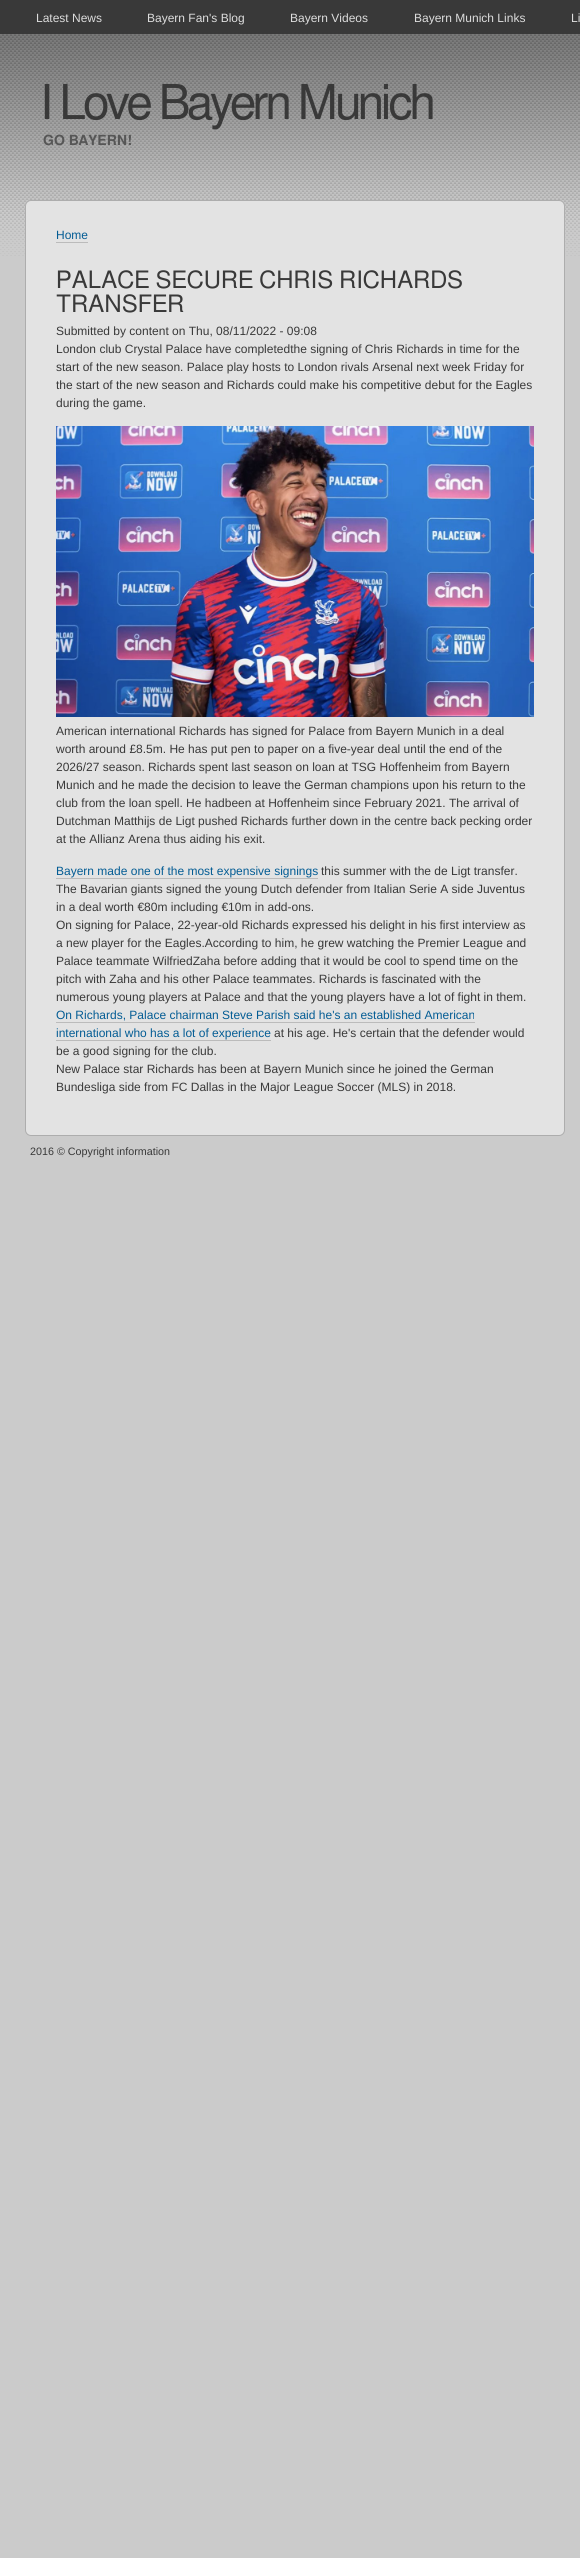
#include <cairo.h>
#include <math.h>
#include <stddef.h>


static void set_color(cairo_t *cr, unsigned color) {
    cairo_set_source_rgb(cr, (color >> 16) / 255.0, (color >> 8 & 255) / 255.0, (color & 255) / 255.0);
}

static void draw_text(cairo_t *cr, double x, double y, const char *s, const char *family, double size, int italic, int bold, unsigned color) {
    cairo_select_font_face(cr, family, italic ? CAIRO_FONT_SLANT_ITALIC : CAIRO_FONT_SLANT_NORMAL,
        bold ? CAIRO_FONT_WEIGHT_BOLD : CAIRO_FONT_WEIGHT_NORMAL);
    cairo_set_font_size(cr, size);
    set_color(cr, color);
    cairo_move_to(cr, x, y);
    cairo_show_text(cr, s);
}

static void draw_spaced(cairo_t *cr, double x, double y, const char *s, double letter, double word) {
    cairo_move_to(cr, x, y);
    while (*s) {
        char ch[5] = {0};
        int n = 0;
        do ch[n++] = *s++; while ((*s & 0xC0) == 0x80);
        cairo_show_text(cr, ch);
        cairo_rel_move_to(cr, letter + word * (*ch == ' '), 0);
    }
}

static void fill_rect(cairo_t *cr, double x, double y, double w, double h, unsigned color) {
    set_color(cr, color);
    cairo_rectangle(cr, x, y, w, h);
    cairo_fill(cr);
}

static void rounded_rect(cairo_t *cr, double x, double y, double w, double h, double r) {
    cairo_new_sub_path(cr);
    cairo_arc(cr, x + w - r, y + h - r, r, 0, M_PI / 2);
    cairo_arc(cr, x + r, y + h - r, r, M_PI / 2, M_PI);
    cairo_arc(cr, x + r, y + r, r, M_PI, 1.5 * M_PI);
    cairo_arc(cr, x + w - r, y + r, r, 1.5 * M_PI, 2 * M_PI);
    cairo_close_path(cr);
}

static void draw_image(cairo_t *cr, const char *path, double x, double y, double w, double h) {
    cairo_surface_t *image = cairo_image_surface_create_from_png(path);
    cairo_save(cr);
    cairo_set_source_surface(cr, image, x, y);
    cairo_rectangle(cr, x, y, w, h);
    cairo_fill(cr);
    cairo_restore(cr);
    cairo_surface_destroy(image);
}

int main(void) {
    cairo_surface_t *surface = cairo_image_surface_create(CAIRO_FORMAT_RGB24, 580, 2558);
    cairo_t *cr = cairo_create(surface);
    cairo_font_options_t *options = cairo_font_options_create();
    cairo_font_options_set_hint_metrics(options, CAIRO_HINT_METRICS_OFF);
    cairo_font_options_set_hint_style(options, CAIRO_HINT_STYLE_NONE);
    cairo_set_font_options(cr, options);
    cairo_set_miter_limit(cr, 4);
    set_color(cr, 0xCBCBCB);
    cairo_paint(cr);
    draw_image(cr, "assets/img1.png", 0, 34, 580, 222);
    fill_rect(cr, 0, 0, 580, 34, 0x393939);
    draw_text(cr, 36, 22, "Latest News", "Liberation Sans", 12, 0, 0, 0xDDDDDD);
    draw_text(cr, 147, 22, "Bayern Fan's Blog", "Liberation Sans", 12, 0, 0, 0xDDDDDD);
    draw_text(cr, 290, 22, "Bayern Videos", "Liberation Sans", 12, 0, 0, 0xDDDDDD);
    draw_text(cr, 414, 22, "Bayern Munich Links", "Liberation Sans", 12, 0, 0, 0xDDDDDD);
    draw_text(cr, 571, 22, "Li", "Liberation Sans", 12, 0, 0, 0xDDDDDD);
    cairo_select_font_face(cr, "FreeSans", CAIRO_FONT_SLANT_NORMAL, CAIRO_FONT_WEIGHT_NORMAL);
    cairo_set_font_size(cr, 48);
    set_color(cr, 0x393939);
    draw_spaced(cr, 40, 119, "I Love Bayern Munich", -3, 0);
    draw_text(cr, 43, 145, "GO BAYERN!", "FreeSans SemiBold", 14, 0, 0, 0x565656);
    set_color(cr, 0xE3E3E3);
    rounded_rect(cr, 25.5, 200.5, 539, 935, 5.5);
    cairo_fill_preserve(cr);
    set_color(cr, 0xADADAD);
    cairo_set_line_width(cr, 1);
    cairo_stroke(cr);
    draw_text(cr, 56, 239, "Home", "Liberation Sans", 12, 0, 0, 0x035C94);
    fill_rect(cr, 56, 242, 32, 1, 0xBBBBBB);
    draw_text(cr, 56, 288, "PALACE SECURE CHRIS RICHARDS", "FreeSans", 24, 0, 0, 0x393939);
    draw_text(cr, 56, 312, "TRANSFER", "FreeSans", 24, 0, 0, 0x393939);
    draw_text(cr, 56, 335, "Submitted by content on Thu, 08/11/2022 - 09:08", "Liberation Sans", 12, 0, 0, 0x393939);
    draw_text(cr, 56, 353, "London club Crystal Palace have completedthe signing of Chris Richards in time for the", "Liberation Sans", 12, 0, 0, 0x393939);
    draw_text(cr, 56, 371, "start of the new season. Palace play hosts to London rivals Arsenal next week Friday for", "Liberation Sans", 12, 0, 0, 0x393939);
    draw_text(cr, 56, 389, "the start of the new season and Richards could make his competitive debut for the Eagles", "Liberation Sans", 12, 0, 0, 0x393939);
    draw_text(cr, 56, 407, "during the game.", "Liberation Sans", 12, 0, 0, 0x393939);
    draw_image(cr, "assets/img2.png", 56, 426, 478, 291);
    draw_text(cr, 56, 735, "American international Richards has signed for Palace from Bayern Munich in a deal", "Liberation Sans", 12, 0, 0, 0x393939);
    draw_text(cr, 56, 753, "worth around £8.5m. He has put pen to paper on a five-year deal until the end of the", "Liberation Sans", 12, 0, 0, 0x393939);
    draw_text(cr, 56, 771, "2026/27 season. Richards spent last season on loan at TSG Hoffenheim from Bayern", "Liberation Sans", 12, 0, 0, 0x393939);
    draw_text(cr, 56, 789, "Munich and he made the decision to leave the German champions upon his return to the", "Liberation Sans", 12, 0, 0, 0x393939);
    draw_text(cr, 56, 807, "club from the loan spell. He hadbeen at Hoffenheim since February 2021. The arrival of", "Liberation Sans", 12, 0, 0, 0x393939);
    draw_text(cr, 56, 825, "Dutchman Matthijs de Ligt pushed Richards further down in the centre back pecking order", "Liberation Sans", 12, 0, 0, 0x393939);
    draw_text(cr, 56, 843, "at the Allianz Arena thus aiding his exit.", "Liberation Sans", 12, 0, 0, 0x393939);
    draw_text(cr, 56, 875, "Bayern made one of the most expensive signings", "Liberation Sans", 12, 0, 0, 0x035C94);
    fill_rect(cr, 56, 878, 262, 1, 0xBBBBBB);
    draw_text(cr, 321, 875, "this summer with the de Ligt transfer.", "Liberation Sans", 12, 0, 0, 0x393939);
    draw_text(cr, 56, 893, "The Bavarian giants signed the young Dutch defender from Italian Serie A side Juventus", "Liberation Sans", 12, 0, 0, 0x393939);
    draw_text(cr, 56, 911, "in a deal worth €80m including €10m in add-ons.", "Liberation Sans", 12, 0, 0, 0x393939);
    draw_text(cr, 56, 929, "On signing for Palace, 22-year-old Richards expressed his delight in his first interview as", "Liberation Sans", 12, 0, 0, 0x393939);
    draw_text(cr, 56, 947, "a new player for the Eagles.According to him, he grew watching the Premier League and", "Liberation Sans", 12, 0, 0, 0x393939);
    draw_text(cr, 56, 965, "Palace teammate WilfriedZaha before adding that it would be cool to spend time on the", "Liberation Sans", 12, 0, 0, 0x393939);
    draw_text(cr, 56, 983, "pitch with Zaha and his other Palace teammates. Richards is fascinated with the", "Liberation Sans", 12, 0, 0, 0x393939);
    draw_text(cr, 56, 1001, "numerous young players at Palace and that the young players have a lot of fight in them.", "Liberation Sans", 12, 0, 0, 0x393939);
    draw_text(cr, 56, 1019, "On Richards, Palace chairman Steve Parish said he's an established American", "Liberation Sans", 12, 0, 0, 0x035C94);
    fill_rect(cr, 56, 1022, 419, 1, 0xBBBBBB);
    draw_text(cr, 56, 1037, "international who has a lot of experience", "Liberation Sans", 12, 0, 0, 0x035C94);
    fill_rect(cr, 56, 1040, 215, 1, 0xBBBBBB);
    draw_text(cr, 274, 1037, "at his age. He's certain that the defender would", "Liberation Sans", 12, 0, 0, 0x393939);
    draw_text(cr, 56, 1055, "be a good signing for the club.", "Liberation Sans", 12, 0, 0, 0x393939);
    draw_text(cr, 56, 1073, "New Palace star Richards has been at Bayern Munich since he joined the German", "Liberation Sans", 12, 0, 0, 0x393939);
    draw_text(cr, 56, 1091, "Bundesliga side from FC Dallas in the Major League Soccer (MLS) in 2018.", "Liberation Sans", 12, 0, 0, 0x393939);
    draw_text(cr, 30, 1155, "2016 © Copyright information", "Liberation Sans", 10.75, 0, 0, 0x393939);
    cairo_surface_write_to_png(surface, "output.png");
    cairo_font_options_destroy(options);
    cairo_destroy(cr);
    cairo_surface_destroy(surface);
    return 0;
}
